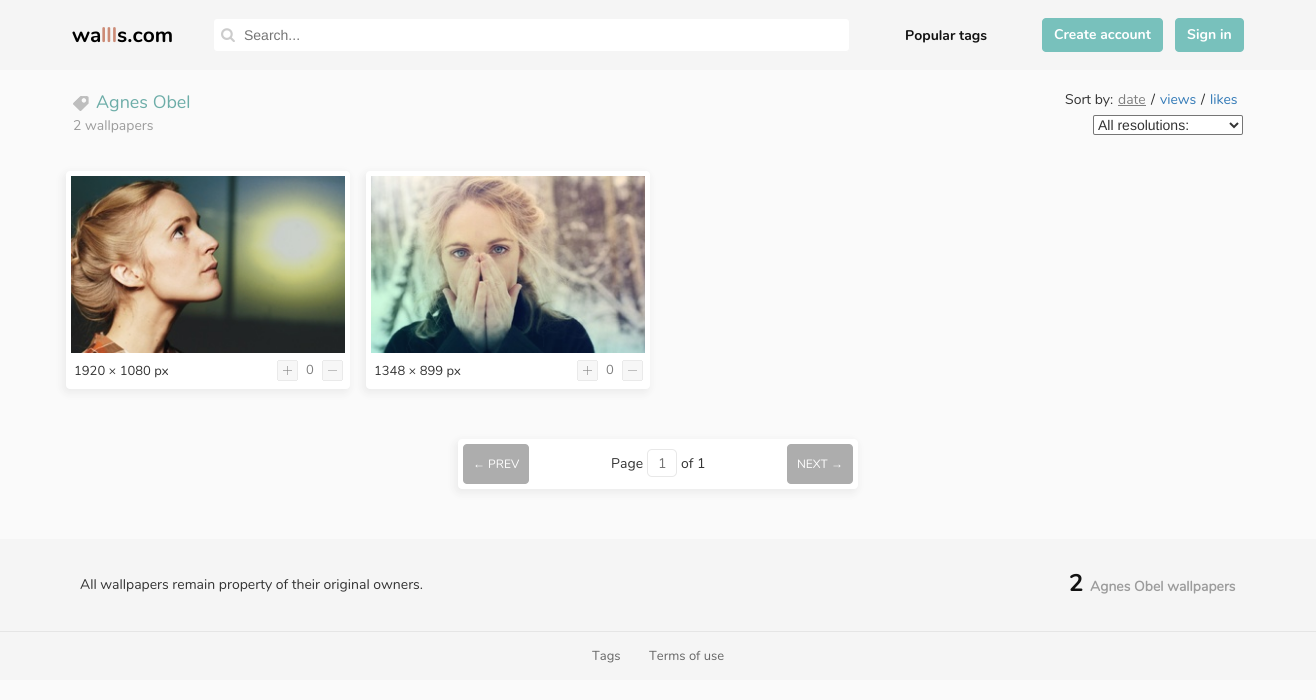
#include <cairo.h>
#include <math.h>
#include <stddef.h>


static void set_color(cairo_t *cr, unsigned color) {
    cairo_set_source_rgb(cr, (color >> 16) / 255.0, (color >> 8 & 255) / 255.0, (color & 255) / 255.0);
}

static void draw_text(cairo_t *cr, double x, double y, const char *s, const char *family, double size, int italic, int bold, unsigned color) {
    cairo_select_font_face(cr, family, italic ? CAIRO_FONT_SLANT_ITALIC : CAIRO_FONT_SLANT_NORMAL,
        bold ? CAIRO_FONT_WEIGHT_BOLD : CAIRO_FONT_WEIGHT_NORMAL);
    cairo_set_font_size(cr, size);
    set_color(cr, color);
    cairo_move_to(cr, x, y);
    cairo_show_text(cr, s);
}

static void fill_rect(cairo_t *cr, double x, double y, double w, double h, unsigned color) {
    set_color(cr, color);
    cairo_rectangle(cr, x, y, w, h);
    cairo_fill(cr);
}

static void rounded_rect(cairo_t *cr, double x, double y, double w, double h, double r) {
    cairo_new_sub_path(cr);
    cairo_arc(cr, x + w - r, y + h - r, r, 0, M_PI / 2);
    cairo_arc(cr, x + r, y + h - r, r, M_PI / 2, M_PI);
    cairo_arc(cr, x + r, y + r, r, M_PI, 1.5 * M_PI);
    cairo_arc(cr, x + w - r, y + r, r, 1.5 * M_PI, 2 * M_PI);
    cairo_close_path(cr);
}

static void draw_shadow(cairo_t *cr, double x, double y, double w, double h, double r, double blur, double alpha) {
    cairo_push_group_with_content(cr, CAIRO_CONTENT_ALPHA);
    cairo_set_operator(cr, CAIRO_OPERATOR_SOURCE);
    for (int i = 15; i >= -15 && fmin(w, h) + blur * i / 3 > 0; i -= 2) {
        double e = blur * i / 6;
        cairo_set_source_rgba(cr, 0, 0, 0, alpha * erfc((i - 1) / 8.5) / 2);
        rounded_rect(cr, x - e, y - e, w + 2 * e, h + 2 * e, fmax(0, fmin(r + e + blur * .6, fmin(w, h) / 2 + e)));
        cairo_fill(cr);
    }
    cairo_pattern_t *soft = cairo_pop_group(cr);
    cairo_mask(cr, soft);
    cairo_pattern_destroy(soft);
}

static void draw_image(cairo_t *cr, const char *path, double x, double y, double w, double h) {
    cairo_surface_t *image = cairo_image_surface_create_from_png(path);
    cairo_save(cr);
    cairo_set_source_surface(cr, image, x, y);
    cairo_rectangle(cr, x, y, w, h);
    cairo_fill(cr);
    cairo_restore(cr);
    cairo_surface_destroy(image);
}

int main(void) {
    cairo_surface_t *surface = cairo_image_surface_create(CAIRO_FORMAT_RGB24, 1316, 700);
    cairo_t *cr = cairo_create(surface);
    cairo_font_options_t *options = cairo_font_options_create();
    cairo_font_options_set_hint_metrics(options, CAIRO_HINT_METRICS_OFF);
    cairo_font_options_set_hint_style(options, CAIRO_HINT_STYLE_NONE);
    cairo_set_font_options(cr, options);
    cairo_set_miter_limit(cr, 4);
    set_color(cr, 0xFAFAFA);
    cairo_paint(cr);
    fill_rect(cr, 0, 0, 1316, 70, 0xF5F5F5);
    draw_text(cr, 72, 42, "wa", "Nunito", 21, 0, 1, 0x000000);
    draw_text(cr, 101, 42, "lll", "Nunito", 21, 0, 1, 0xCC8B76);
    draw_text(cr, 117, 42, "s.com", "Nunito", 21, 0, 1, 0x000000);
    set_color(cr, 0xFFFFFF);
    rounded_rect(cr, 213.5, 18.5, 636, 33, 3.5);
    cairo_fill_preserve(cr);
    set_color(cr, 0xF5F5F5);
    cairo_set_line_width(cr, 1);
    cairo_stroke(cr);
    draw_image(cr, "assets/img1.png", 221, 28, 14, 14);
    draw_text(cr, 244, 40, "Search...", "Liberation Sans", 14, 0, 0, 0x757575);
    draw_text(cr, 905, 40, "Popular tags", "Nunito", 14, 0, 1, 0x121212);
    set_color(cr, 0x78C1BC);
    rounded_rect(cr, 1042, 18, 121, 34, 4);
    cairo_fill(cr);
    draw_text(cr, 1054, 39, "Create account", "Nunito", 14, 0, 1, 0xFFFFFF);
    set_color(cr, 0x78C1BC);
    rounded_rect(cr, 1175, 18, 69, 34, 4);
    cairo_fill(cr);
    draw_text(cr, 1187, 39, "Sign in", "Nunito", 14, 0, 1, 0xFFFFFF);
    draw_image(cr, "assets/img2.png", 73, 96, 16, 15);
    draw_text(cr, 96, 108, "Agnes Obel", "Nunito", 18, 0, 0, 0x6DADA8);
    draw_text(cr, 73, 130, "2 wallpapers", "Nunito", 14, 0, 0, 0x9C9C9C);
    draw_text(cr, 1065, 104, "Sort by:", "Nunito", 14, 0, 0, 0x333333);
    draw_text(cr, 1118, 104, "date", "Nunito", 14, 0, 0, 0x808080);
    fill_rect(cr, 1118, 105, 28, 1, 0x808080);
    draw_text(cr, 1151, 104, "/", "Nunito", 14, 0, 0, 0x333333);
    draw_text(cr, 1160, 104, "views", "Nunito", 14, 0, 0, 0x337AB7);
    draw_text(cr, 1201, 104, "/", "Nunito", 14, 0, 0, 0x333333);
    draw_text(cr, 1210, 104, "likes", "Nunito", 14, 0, 0, 0x337AB7);
    set_color(cr, 0xFFFFFF);
    rounded_rect(cr, 1093.5, 115.5, 149, 19, 1.5);
    cairo_fill_preserve(cr);
    set_color(cr, 0x767676);
    cairo_stroke(cr);
    cairo_new_path(cr);
    cairo_move_to(cr, 1230, 123);
    cairo_line_to(cr, 1234, 127);
    cairo_line_to(cr, 1238, 123);
    set_color(cr, 0x333333);
    cairo_set_line_width(cr, 2);
    cairo_stroke(cr);
    draw_text(cr, 1098, 130, "All resolutions:", "Liberation Sans", 14, 0, 0, 0x333333);
    set_color(cr, 0x888888);
    draw_shadow(cr, 64, 174, 284, 218, 4, 5, 0.15);
    set_color(cr, 0xFFFFFF);
    rounded_rect(cr, 66, 171, 284, 218, 4);
    cairo_fill(cr);
    draw_image(cr, "assets/img3.png", 71, 176, 274, 177);
    draw_text(cr, 74, 375, "1920 × 1080 px", "Nunito", 13, 0, 0, 0x333333);
    draw_image(cr, "assets/img4.png", 277, 360, 21, 21);
    draw_text(cr, 306, 374, "0", "Nunito", 13, 0, 0, 0x808080);
    draw_image(cr, "assets/img5.png", 322, 360, 21, 21);
    set_color(cr, 0x888888);
    draw_shadow(cr, 364, 174, 284, 218, 4, 5, 0.15);
    set_color(cr, 0xFFFFFF);
    rounded_rect(cr, 366, 171, 284, 218, 4);
    cairo_fill(cr);
    draw_image(cr, "assets/img6.png", 371, 176, 274, 177);
    draw_text(cr, 374, 375, "1348 × 899 px", "Nunito", 13, 0, 0, 0x333333);
    draw_image(cr, "assets/img4.png", 577, 360, 21, 21);
    draw_text(cr, 606, 374, "0", "Nunito", 13, 0, 0, 0x808080);
    draw_image(cr, "assets/img5.png", 622, 360, 21, 21);
    set_color(cr, 0x888888);
    draw_shadow(cr, 456, 442, 400, 50, 4, 5, 0.15);
    set_color(cr, 0xFFFFFF);
    rounded_rect(cr, 458, 439, 400, 50, 4);
    cairo_fill(cr);
    set_color(cr, 0xADADAD);
    rounded_rect(cr, 463, 444, 66, 40, 4);
    cairo_fill(cr);
    draw_text(cr, 473, 468, "←", "Liberation Serif", 12, 0, 0, 0xFFFFFF);
    draw_text(cr, 488, 468, "PREV", "Nunito", 12, 0, 0, 0xFFFFFF);
    draw_text(cr, 611, 468, "Page", "Nunito", 14, 0, 0, 0x333333);
    rounded_rect(cr, 647.5, 449.5, 29, 27, 4.5);
    set_color(cr, 0xE8E8E8);
    cairo_set_line_width(cr, 1);
    cairo_stroke(cr);
    draw_text(cr, 658, 468, "1", "Nunito", 14, 0, 0, 0x757575);
    draw_text(cr, 681, 468, "of 1", "Nunito", 14, 0, 0, 0x333333);
    set_color(cr, 0xADADAD);
    rounded_rect(cr, 787, 444, 66, 40, 4);
    cairo_fill(cr);
    draw_text(cr, 797, 468, "NEXT", "Nunito", 12, 0, 0, 0xFFFFFF);
    draw_text(cr, 831, 468, "→", "Liberation Serif", 12, 0, 0, 0xFFFFFF);
    fill_rect(cr, 0, 539, 1316, 141, 0xF5F5F5);
    draw_text(cr, 80, 589, "All wallpapers remain property of their original owners.", "Nunito", 14, 0, 0, 0x333333);
    draw_text(cr, 1069, 591, "2", "Nunito", 24, 0, 1, 0x121212);
    draw_text(cr, 1090, 591, "Agnes Obel wallpapers", "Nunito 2", 14, 0, 1, 0x9C9C9C);
    fill_rect(cr, 0, 631, 1316, 1, 0xE5E5E5);
    draw_text(cr, 592, 660, "Tags", "Nunito", 13, 0, 0, 0x666666);
    draw_text(cr, 649, 660, "Terms of use", "Nunito", 13, 0, 0, 0x666666);
    cairo_surface_write_to_png(surface, "output.png");
    cairo_font_options_destroy(options);
    cairo_destroy(cr);
    cairo_surface_destroy(surface);
    return 0;
}
